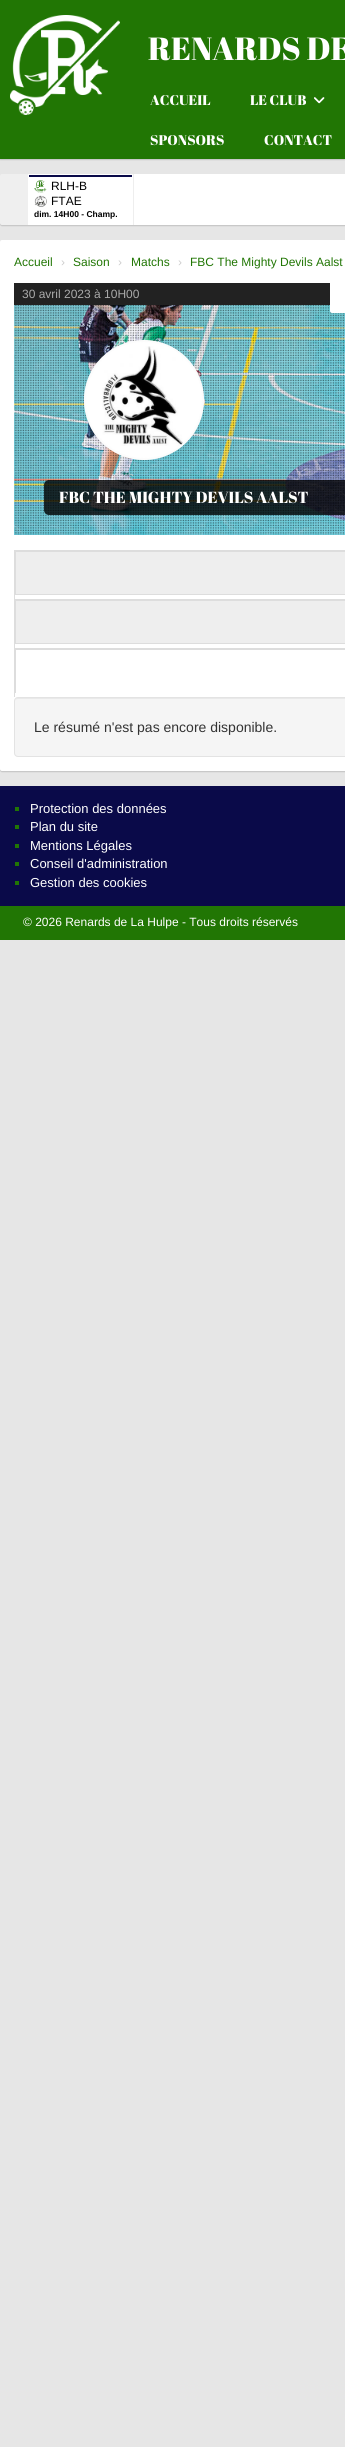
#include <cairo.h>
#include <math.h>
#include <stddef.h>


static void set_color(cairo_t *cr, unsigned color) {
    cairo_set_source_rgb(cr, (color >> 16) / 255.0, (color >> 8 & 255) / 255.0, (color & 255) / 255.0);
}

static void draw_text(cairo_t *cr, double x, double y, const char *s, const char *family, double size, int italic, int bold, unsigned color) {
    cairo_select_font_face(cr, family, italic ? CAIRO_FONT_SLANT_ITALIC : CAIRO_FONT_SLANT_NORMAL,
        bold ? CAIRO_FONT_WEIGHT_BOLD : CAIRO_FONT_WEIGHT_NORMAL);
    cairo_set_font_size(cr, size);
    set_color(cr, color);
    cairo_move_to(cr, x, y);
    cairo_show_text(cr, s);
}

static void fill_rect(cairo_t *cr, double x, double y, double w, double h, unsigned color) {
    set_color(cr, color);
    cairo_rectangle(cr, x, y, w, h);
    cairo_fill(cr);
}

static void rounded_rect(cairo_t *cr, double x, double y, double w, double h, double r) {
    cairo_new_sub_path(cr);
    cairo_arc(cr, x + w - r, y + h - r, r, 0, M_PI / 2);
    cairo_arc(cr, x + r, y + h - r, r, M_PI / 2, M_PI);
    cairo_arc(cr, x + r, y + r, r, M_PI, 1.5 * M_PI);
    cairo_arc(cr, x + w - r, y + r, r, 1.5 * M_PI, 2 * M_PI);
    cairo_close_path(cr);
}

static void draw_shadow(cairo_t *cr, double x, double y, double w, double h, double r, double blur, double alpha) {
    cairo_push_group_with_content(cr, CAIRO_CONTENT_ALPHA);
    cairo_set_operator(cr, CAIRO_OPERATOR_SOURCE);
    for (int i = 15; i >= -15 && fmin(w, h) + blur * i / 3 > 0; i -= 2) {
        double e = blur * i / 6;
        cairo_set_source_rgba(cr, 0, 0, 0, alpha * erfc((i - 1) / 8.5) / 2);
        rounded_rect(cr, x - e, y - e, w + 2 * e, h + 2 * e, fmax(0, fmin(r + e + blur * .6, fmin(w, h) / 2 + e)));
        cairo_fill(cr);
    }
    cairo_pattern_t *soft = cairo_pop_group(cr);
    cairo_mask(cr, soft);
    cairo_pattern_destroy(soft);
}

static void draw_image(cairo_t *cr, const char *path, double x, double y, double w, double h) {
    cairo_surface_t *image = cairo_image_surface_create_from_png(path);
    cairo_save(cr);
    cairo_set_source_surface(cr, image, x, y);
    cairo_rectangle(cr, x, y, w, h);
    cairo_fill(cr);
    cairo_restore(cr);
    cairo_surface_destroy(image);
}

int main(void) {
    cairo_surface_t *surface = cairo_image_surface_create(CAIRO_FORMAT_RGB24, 345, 2447);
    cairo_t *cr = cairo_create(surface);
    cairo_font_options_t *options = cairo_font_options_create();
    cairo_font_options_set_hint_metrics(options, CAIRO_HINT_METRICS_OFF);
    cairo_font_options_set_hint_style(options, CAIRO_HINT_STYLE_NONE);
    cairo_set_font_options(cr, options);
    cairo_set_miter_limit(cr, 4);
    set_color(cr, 0xE6E6E6);
    cairo_paint(cr);
    set_color(cr, 0x000000);
    draw_shadow(cr, 0, 1, 345, 159, 0, 0.5, 0.15);
    fill_rect(cr, 0, 0, 345, 159, 0x217604);
    draw_image(cr, "assets/img1.png", 10, 15, 110, 100);
    draw_text(cr, 148, 60, "RENARDS DE", "Abril Fatface", 32, 0, 0, 0xFFFFFF);
    draw_text(cr, 150, 105, "ACCUEIL", "Abril Fatface", 14, 0, 0, 0xFFFFFF);
    draw_text(cr, 250, 105, "LE CLUB", "Abril Fatface", 14, 0, 0, 0xFFFFFF);
    draw_image(cr, "assets/img2.png", 314, 97, 11, 7);
    draw_text(cr, 150, 145, "SPONSORS", "Abril Fatface", 14, 0, 0, 0xFFFFFF);
    draw_text(cr, 264, 145, "CONTACT", "Abril Fatface", 14, 0, 0, 0xFFFFFF);
    set_color(cr, 0x000000);
    draw_shadow(cr, 0, 175, 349, 51, 2, 0.5, 0.15);
    set_color(cr, 0xEFEFEF);
    rounded_rect(cr, 0, 174, 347, 51, 2);
    cairo_fill(cr);
    fill_rect(cr, 28, 174, 317, 51, 0xFFFFFF);
    fill_rect(cr, 133, 174, 1, 51, 0xEEEEEE);
    fill_rect(cr, 29, 175, 103, 2, 0x0A0A49);
    draw_image(cr, "assets/img3.png", 34, 180, 13, 13);
    draw_text(cr, 51, 190, "RLH-B", "Liberation Sans", 12, 0, 0, 0x000000);
    draw_image(cr, "assets/img4.png", 34, 195, 13, 12);
    draw_text(cr, 51, 205, "FTAE", "Liberation Sans", 12, 0, 0, 0x000000);
    draw_text(cr, 34, 217, "dim. 14H00 - Champ.", "Liberation Sans", 8.5, 0, 1, 0x000000);
    set_color(cr, 0x000000);
    draw_shadow(cr, 0, 241, 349, 531, 2, 0.5, 0.15);
    set_color(cr, 0xFFFFFF);
    rounded_rect(cr, 0, 240, 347, 531, 2);
    cairo_fill(cr);
    draw_text(cr, 14, 266, "Accueil", "Liberation Sans", 12, 0, 0, 0x217604);
    draw_text(cr, 61, 266, "›", "Liberation Sans", 12, 0, 0, 0xCCCCCC);
    draw_text(cr, 73, 266, "Saison", "Liberation Sans", 12, 0, 0, 0x217604);
    draw_text(cr, 118, 266, "›", "Liberation Sans", 12, 0, 0, 0xCCCCCC);
    draw_text(cr, 131, 266, "Matchs", "Liberation Sans", 12, 0, 0, 0x217604);
    draw_text(cr, 178, 266, "›", "Liberation Sans", 12, 0, 0, 0xCCCCCC);
    draw_text(cr, 190, 266, "FBC The Mighty Devils Aalst", "Liberation Sans", 12, 0, 0, 0x217604);
    draw_image(cr, "assets/img5.png", 14, 305, 331, 230);
    draw_image(cr, "assets/img6.png", 14, 305, 331, 230);
    fill_rect(cr, 14, 283, 316, 22, 0x222222);
    draw_text(cr, 22, 298, "30 avril 2023 à 10H00", "Liberation Sans", 12, 0, 0, 0xAAAAAA);
    set_color(cr, 0xFFFFFF);
    cairo_new_path(cr);
    cairo_move_to(cr, 330, 283);
    cairo_line_to(cr, 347, 283);
    cairo_line_to(cr, 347, 311);
    cairo_curve_to(cr, 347, 312, 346, 313, 345, 313);
    cairo_line_to(cr, 332, 313);
    cairo_curve_to(cr, 331, 313, 330, 312, 330, 311);
    cairo_close_path(cr);
    cairo_fill(cr);
    cairo_arc(cr, 144, 400, 60, 0, 2 * M_PI);
    cairo_fill(cr);
    cairo_arc(cr, 144, 400, 59, 0, 2 * M_PI);
    cairo_set_source_rgba(cr, 0.98, 0.98, 0.98, 0.5);
    cairo_stroke(cr);
    draw_image(cr, "assets/img7.png", 102, 346, 81, 100);
    cairo_set_source_rgba(cr, 0, 0, 0, 0.8);
    rounded_rect(cr, 44, 480, 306, 35, 5);
    cairo_fill(cr);
    draw_text(cr, 59, 503, "FBC THE MIGHTY DEVILS AALST", "Abril Fatface", 16, 0, 0, 0xFFFFFF);
    fill_rect(cr, 14, 550, 1, 147, 0xDDDDDD);
    fill_rect(cr, 16, 552, 329, 42, 0xEEEEEE);
    fill_rect(cr, 15, 550, 330, 2, 0xDDDDDD);
    fill_rect(cr, 15, 594, 330, 1, 0xDDDDDD);
    fill_rect(cr, 15, 550, 1, 45, 0xDDDDDD);
    fill_rect(cr, 16, 601, 329, 42, 0xEEEEEE);
    fill_rect(cr, 15, 599, 330, 2, 0xDDDDDD);
    fill_rect(cr, 15, 643, 330, 1, 0xDDDDDD);
    fill_rect(cr, 15, 599, 1, 45, 0xDDDDDD);
    fill_rect(cr, 15, 648, 330, 2, 0xDDDDDD);
    fill_rect(cr, 15, 648, 1, 45, 0xDDDDDD);
    set_color(cr, 0xF5F5F5);
    rounded_rect(cr, 14, 697, 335, 60, 4);
    cairo_fill(cr);
    set_color(cr, 0xE9E9E9);
    cairo_new_path(cr);
    cairo_move_to(cr, 18, 699);
    cairo_line_to(cr, 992, 699);
    cairo_curve_to(cr, 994, 699, 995, 700, 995, 702);
    cairo_curve_to(cr, 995, 700, 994, 698, 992, 698);
    cairo_line_to(cr, 18, 698);
    cairo_curve_to(cr, 16, 698, 15, 700, 15, 702);
    cairo_curve_to(cr, 15, 700, 16, 699, 18, 699);
    cairo_close_path(cr);
    cairo_fill(cr);
    rounded_rect(cr, 14.5, 697.5, 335, 59, 3.5);
    set_color(cr, 0xE3E3E3);
    cairo_set_line_width(cr, 1);
    cairo_stroke(cr);
    draw_text(cr, 34, 732, "Le résumé n'est pas encore disponible.", "Liberation Sans", 14, 0, 0, 0x333333);
    fill_rect(cr, 0, 786, 345, 120, 0x0A0A49);
    fill_rect(cr, 15, 807, 4, 4, 0x217604);
    draw_text(cr, 30, 813, "Protection des données", "Liberation Sans", 13, 0, 0, 0xFFFFFF);
    fill_rect(cr, 15, 825, 4, 4, 0x217604);
    draw_text(cr, 30, 831, "Plan du site", "Liberation Sans", 13, 0, 0, 0xFFFFFF);
    fill_rect(cr, 15, 844, 4, 4, 0x217604);
    draw_text(cr, 30, 850, "Mentions Légales", "Liberation Sans", 13, 0, 0, 0xFFFFFF);
    fill_rect(cr, 15, 862, 4, 4, 0x217604);
    draw_text(cr, 30, 868, "Conseil d'administration", "Liberation Sans", 13, 0, 0, 0xFFFFFF);
    fill_rect(cr, 15, 881, 4, 4, 0x217604);
    draw_text(cr, 30, 887, "Gestion des cookies", "Liberation Sans", 13, 0, 0, 0xFFFFFF);
    fill_rect(cr, 0, 906, 345, 34, 0x217604);
    draw_text(cr, 23, 926, "© 2026 Renards de La Hulpe - Tous droits réservés", "Liberation Sans", 12, 0, 0, 0xFFFFFF);
    cairo_surface_write_to_png(surface, "output.png");
    cairo_font_options_destroy(options);
    cairo_destroy(cr);
    cairo_surface_destroy(surface);
    return 0;
}
